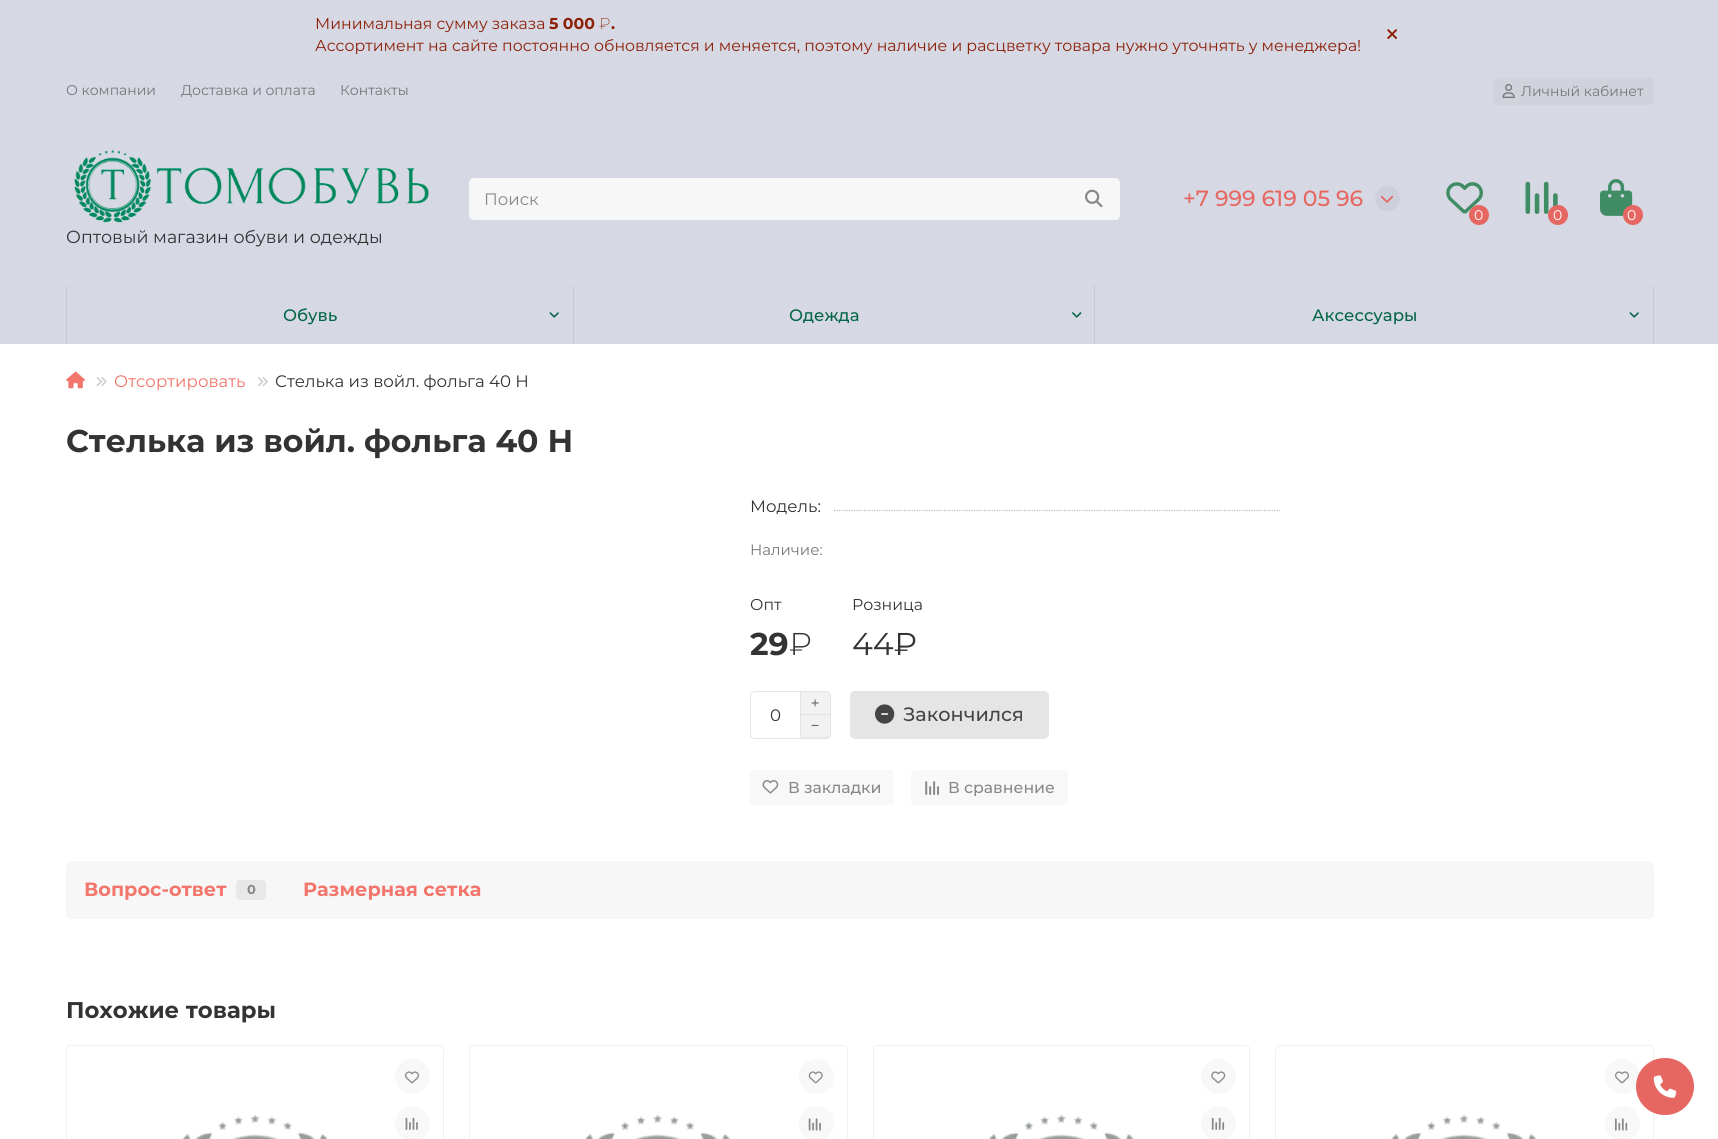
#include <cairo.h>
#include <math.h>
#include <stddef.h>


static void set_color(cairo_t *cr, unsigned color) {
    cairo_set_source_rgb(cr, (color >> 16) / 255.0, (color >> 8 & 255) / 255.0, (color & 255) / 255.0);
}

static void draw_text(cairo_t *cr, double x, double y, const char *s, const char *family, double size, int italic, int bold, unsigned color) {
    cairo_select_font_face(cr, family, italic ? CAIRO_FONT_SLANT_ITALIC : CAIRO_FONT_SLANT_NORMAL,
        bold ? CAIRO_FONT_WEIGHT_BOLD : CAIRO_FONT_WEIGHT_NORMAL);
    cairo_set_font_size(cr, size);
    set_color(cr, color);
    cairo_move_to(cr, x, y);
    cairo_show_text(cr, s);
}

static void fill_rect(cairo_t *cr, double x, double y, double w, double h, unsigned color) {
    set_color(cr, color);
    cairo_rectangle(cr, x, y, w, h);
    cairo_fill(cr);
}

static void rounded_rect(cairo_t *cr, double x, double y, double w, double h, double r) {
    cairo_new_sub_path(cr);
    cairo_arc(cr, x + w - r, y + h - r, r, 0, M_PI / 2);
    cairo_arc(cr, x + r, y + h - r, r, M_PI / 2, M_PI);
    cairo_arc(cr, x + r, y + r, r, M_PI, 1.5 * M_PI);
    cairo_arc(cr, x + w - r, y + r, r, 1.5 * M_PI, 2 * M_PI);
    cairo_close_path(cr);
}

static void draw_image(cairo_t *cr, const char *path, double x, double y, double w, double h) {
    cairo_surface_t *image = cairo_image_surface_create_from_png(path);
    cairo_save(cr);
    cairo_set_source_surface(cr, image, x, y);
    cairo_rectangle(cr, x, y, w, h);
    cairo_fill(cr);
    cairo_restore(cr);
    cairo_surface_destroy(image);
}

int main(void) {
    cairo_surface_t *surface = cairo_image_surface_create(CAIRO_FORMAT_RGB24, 1718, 1139);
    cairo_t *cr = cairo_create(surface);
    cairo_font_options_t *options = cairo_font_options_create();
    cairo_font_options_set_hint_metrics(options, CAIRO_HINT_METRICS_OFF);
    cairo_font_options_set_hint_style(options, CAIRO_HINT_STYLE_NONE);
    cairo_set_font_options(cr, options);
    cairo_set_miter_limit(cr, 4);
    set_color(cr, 0xFFFFFF);
    cairo_paint(cr);
    fill_rect(cr, 0, 0, 1718, 344, 0xD6D8E3);
    draw_text(cr, 315, 29, "Минимальная сумму заказа", "Montserrat", 15.75, 0, 0, 0x8C2008);
    draw_text(cr, 549, 29, "5 000", "Montserrat", 15.75, 0, 1, 0x8C2008);
    draw_text(cr, 599, 29, "₽", "Montserrat ExtraLight", 15.75, 0, 0, 0x8C2008);
    draw_text(cr, 611, 29, ".", "Montserrat", 15.75, 0, 1, 0x8C2008);
    draw_text(cr, 315, 51, "Ассортимент на сайте постоянно обновляется и меняется, поэтому наличие и расцветку товара нужно уточнять у менеджера!", "Montserrat", 15.75, 0, 0, 0x8C2008);
    draw_image(cr, "assets/img1.png", 1387, 29, 10, 10);
    draw_text(cr, 66, 95, "О компании", "Montserrat", 14, 0, 0, 0x777777);
    draw_text(cr, 181, 95, "Доставка и оплата", "Montserrat", 14, 0, 0, 0x777777);
    draw_text(cr, 340, 95, "Контакты", "Montserrat", 14, 0, 0, 0x777777);
    set_color(cr, 0xD0D2DC);
    rounded_rect(cr, 1493, 78, 161, 27, 4);
    cairo_fill(cr);
    draw_image(cr, "assets/img2.png", 1502, 84, 13, 14);
    draw_text(cr, 1521, 96, "Личный кабинет", "Montserrat", 14, 0, 0, 0x777777);
    set_color(cr, 0xF7F7F7);
    rounded_rect(cr, 469, 178, 651, 42, 5);
    cairo_fill(cr);
    draw_text(cr, 484, 205, "Поиск", "Montserrat", 16.6, 0, 0, 0x888888);
    draw_image(cr, "assets/img3.png", 1085, 189, 18, 19);
    draw_text(cr, 1183, 206, "+7 999 619 05 96", "Montserrat Medium", 22, 0, 0, 0xE66761);
    set_color(cr, 0xCDCFDA);
    cairo_new_path(cr);
    cairo_arc(cr, 1387.5, 198.5, 12.5, 0, 2 * M_PI);
    cairo_fill(cr);
    draw_image(cr, "assets/img4.png", 1380, 195, 14, 8);
    draw_image(cr, "assets/img5.png", 1446, 182, 37, 32);
    set_color(cr, 0xE66761);
    cairo_arc(cr, 1479, 215, 10, 0, 2 * M_PI);
    cairo_fill(cr);
    draw_text(cr, 1474, 220, "0", "Montserrat", 14, 0, 0, 0xFFFFFF);
    draw_image(cr, "assets/img6.png", 1525, 181, 33, 33);
    set_color(cr, 0xE66761);
    cairo_arc(cr, 1558, 215, 10, 0, 2 * M_PI);
    cairo_fill(cr);
    draw_text(cr, 1553, 220, "0", "Montserrat", 14, 0, 0, 0xFFFFFF);
    draw_image(cr, "assets/img7.png", 1600, 179, 33, 37);
    set_color(cr, 0xE66761);
    cairo_arc(cr, 1633, 215, 10, 0, 2 * M_PI);
    cairo_fill(cr);
    draw_text(cr, 1627, 220, "0", "Montserrat", 14, 0, 0, 0xFFFFFF);
    draw_image(cr, "assets/img8.png", 74, 150, 355, 73);
    draw_text(cr, 66, 243, "Оптовый магазин обуви и одежды", "Montserrat", 17.5, 0, 0, 0x333333);
    fill_rect(cr, 66, 286, 1, 58, 0xC5C7D1);
    draw_text(cr, 283, 321, "Обувь", "Montserrat Medium", 16.6, 0, 0, 0x036546);
    draw_image(cr, "assets/img9.png", 549, 312, 10, 6);
    fill_rect(cr, 573, 286, 1, 58, 0xC5C7D1);
    draw_text(cr, 789, 321, "Одежда", "Montserrat Medium", 16.6, 0, 0, 0x036546);
    draw_image(cr, "assets/img10.png", 1072, 312, 10, 6);
    fill_rect(cr, 1094, 286, 1, 58, 0xC5C7D1);
    fill_rect(cr, 1653, 286, 1, 58, 0xC5C7D1);
    draw_text(cr, 1312, 321, "Аксессуары", "Montserrat Medium", 16.6, 0, 0, 0x036546);
    draw_image(cr, "assets/img9.png", 1629, 312, 10, 6);
    draw_image(cr, "assets/img11.png", 66, 371, 19, 18);
    draw_image(cr, "assets/img12.png", 96, 377, 11, 10);
    draw_text(cr, 114, 387, "Отсортировать", "Montserrat", 16.6, 0, 0, 0xF2766B);
    draw_image(cr, "assets/img13.png", 257, 377, 11, 10);
    draw_text(cr, 275, 387, "Стелька из войл. фольга 40 Н", "Montserrat", 16.6, 0, 0, 0x333333);
    draw_text(cr, 66, 452, "Стелька из войл. фольга 40 Н", "Montserrat", 31.5, 0, 1, 0x333333);
    draw_text(cr, 750, 512, "Модель:", "Montserrat", 16.6, 0, 0, 0x333333);
    cairo_new_path(cr);
    cairo_move_to(cr, 834, 510.5);
    cairo_line_to(cr, 1280, 510.5);
    set_color(cr, 0xBBBBBB);
    cairo_set_line_width(cr, 1.2);
    cairo_set_dash(cr, (double[]){1.25, 1.25}, 2, 0);
    cairo_stroke(cr);
    draw_text(cr, 750, 555, "Наличие:", "Montserrat", 15, 0, 0, 0x777777);
    draw_text(cr, 750, 610, "Опт", "Montserrat", 15.75, 0, 0, 0x333333);
    draw_text(cr, 750, 655, "29", "Montserrat", 31.5, 0, 1, 0x333333);
    draw_text(cr, 789, 655, "₽", "Montserrat Light", 31.5, 0, 0, 0x333333);
    draw_text(cr, 852, 610, "Розница", "Montserrat", 15.75, 0, 0, 0x333333);
    draw_text(cr, 852, 655, "44₽", "Montserrat", 31.5, 0, 0, 0x333333);
    set_color(cr, 0xE6E6E6);
    cairo_set_fill_rule(cr, CAIRO_FILL_RULE_EVEN_ODD);
    cairo_new_path(cr);
    cairo_move_to(cr, 755, 691);
    cairo_line_to(cr, 800, 691);
    cairo_line_to(cr, 800, 739);
    cairo_line_to(cr, 755, 739);
    cairo_curve_to(cr, 752, 739, 750, 737, 750, 734);
    cairo_line_to(cr, 750, 696);
    cairo_curve_to(cr, 750, 693, 752, 691, 755, 691);
    cairo_close_path(cr);
    cairo_move_to(cr, 755, 692);
    cairo_line_to(cr, 800, 692);
    cairo_line_to(cr, 800, 738);
    cairo_line_to(cr, 755, 738);
    cairo_curve_to(cr, 753, 738, 751, 736, 751, 734);
    cairo_line_to(cr, 751, 696);
    cairo_curve_to(cr, 751, 694, 753, 692, 755, 692);
    cairo_close_path(cr);
    cairo_fill(cr);
    draw_text(cr, 770, 721, "0", "Montserrat", 16.6, 0, 0, 0x333333);
    set_color(cr, 0xF2F2F2);
    cairo_new_path(cr);
    cairo_move_to(cr, 800.5, 691.5);
    cairo_line_to(cr, 826, 691.5);
    cairo_curve_to(cr, 828.5, 691.5, 830.5, 693.5, 830.5, 696);
    cairo_line_to(cr, 830.5, 714.5);
    cairo_line_to(cr, 800.5, 714.5);
    cairo_close_path(cr);
    cairo_fill_preserve(cr);
    set_color(cr, 0xE3E3E3);
    cairo_set_line_width(cr, 1);
    cairo_set_dash(cr, NULL, 0, 0);
    cairo_stroke(cr);
    draw_image(cr, "assets/img14.png", 811, 699, 8, 8);
    set_color(cr, 0xF2F2F2);
    cairo_new_path(cr);
    cairo_move_to(cr, 800, 715);
    cairo_line_to(cr, 831, 715);
    cairo_line_to(cr, 831, 734);
    cairo_curve_to(cr, 831, 737, 829, 739, 826, 739);
    cairo_line_to(cr, 800, 739);
    cairo_close_path(cr);
    cairo_fill(cr);
    set_color(cr, 0xE3E3E3);
    cairo_new_path(cr);
    cairo_move_to(cr, 800, 715);
    cairo_line_to(cr, 831, 715);
    cairo_line_to(cr, 831, 734);
    cairo_curve_to(cr, 831, 736.5, 829, 739, 826, 739);
    cairo_line_to(cr, 800, 739);
    cairo_close_path(cr);
    cairo_move_to(cr, 801, 715);
    cairo_line_to(cr, 830, 715);
    cairo_line_to(cr, 830, 734);
    cairo_curve_to(cr, 830, 736, 828.5, 737.5, 826, 737.5);
    cairo_line_to(cr, 801, 737.5);
    cairo_close_path(cr);
    cairo_fill(cr);
    draw_image(cr, "assets/img15.png", 811, 724, 8, 2);
    set_color(cr, 0xE5E5E5);
    rounded_rect(cr, 850, 691, 199, 48, 5);
    cairo_fill(cr);
    draw_image(cr, "assets/img16.png", 875, 704, 20, 20);
    draw_text(cr, 903, 721, "Закончился", "Montserrat Medium", 19.25, 0, 0, 0x444444);
    set_color(cr, 0xF8F8F8);
    rounded_rect(cr, 750, 770, 144, 35, 4);
    cairo_fill(cr);
    draw_image(cr, "assets/img17.png", 762, 780, 17, 14);
    draw_text(cr, 788, 793, "В закладки", "Montserrat Medium", 15.75, 0, 0, 0x888888);
    set_color(cr, 0xF8F8F8);
    rounded_rect(cr, 911, 770, 157, 35, 4);
    cairo_fill(cr);
    draw_image(cr, "assets/img18.png", 925, 781, 14, 14);
    draw_text(cr, 948, 793, "В сравнение", "Montserrat Medium", 15.75, 0, 0, 0x888888);
    set_color(cr, 0xF7F7F7);
    rounded_rect(cr, 66, 861, 1588, 58, 5);
    cairo_fill(cr);
    draw_text(cr, 84, 896, "Вопрос-ответ", "Montserrat", 19.25, 0, 1, 0xF2766B);
    set_color(cr, 0xE8E8E8);
    rounded_rect(cr, 236, 880, 30, 20, 4);
    cairo_fill(cr);
    draw_text(cr, 247, 894, "0", "Montserrat", 13, 0, 1, 0x888888);
    draw_text(cr, 303, 896, "Размерная сетка", "Montserrat", 19.25, 0, 1, 0xF2766B);
    draw_text(cr, 66, 1018, "Похожие товары", "Montserrat", 22.75, 0, 1, 0x333333);
    rounded_rect(cr, 66.5, 1045.5, 377, 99, 4.5);
    set_color(cr, 0xF0F0F0);
    cairo_stroke(cr);
    draw_image(cr, "assets/img19.png", 182, 1114, 146, 25);
    set_color(cr, 0xF8F8F8);
    cairo_arc(cr, 412.5, 1076.5, 17.5, 0, 2 * M_PI);
    cairo_fill(cr);
    draw_image(cr, "assets/img20.png", 405, 1071, 14, 13);
    cairo_arc(cr, 412.5, 1123.5, 17.5, 0, 2 * M_PI);
    cairo_fill(cr);
    draw_image(cr, "assets/img21.png", 405, 1117, 13, 13);
    rounded_rect(cr, 469.5, 1045.5, 378, 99, 4.5);
    set_color(cr, 0xF0F0F0);
    cairo_stroke(cr);
    draw_image(cr, "assets/img22.png", 585, 1114, 146, 25);
    set_color(cr, 0xF8F8F8);
    cairo_arc(cr, 816.5, 1076.5, 17.5, 0, 2 * M_PI);
    cairo_fill(cr);
    draw_image(cr, "assets/img23.png", 808, 1071, 15, 13);
    cairo_arc(cr, 816.5, 1123.5, 17.5, 0, 2 * M_PI);
    cairo_fill(cr);
    draw_image(cr, "assets/img24.png", 808, 1118, 13, 13);
    rounded_rect(cr, 873.5, 1045.5, 376, 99, 4.5);
    set_color(cr, 0xF0F0F0);
    cairo_stroke(cr);
    draw_image(cr, "assets/img25.png", 988, 1114, 146, 25);
    set_color(cr, 0xF8F8F8);
    cairo_arc(cr, 1218.5, 1076.5, 17.5, 0, 2 * M_PI);
    cairo_fill(cr);
    draw_image(cr, "assets/img26.png", 1211, 1071, 15, 13);
    cairo_arc(cr, 1218.5, 1123.5, 17.5, 0, 2 * M_PI);
    cairo_fill(cr);
    draw_image(cr, "assets/img27.png", 1211, 1117, 14, 13);
    rounded_rect(cr, 1275.5, 1045.5, 378, 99, 4.5);
    set_color(cr, 0xF0F0F0);
    cairo_stroke(cr);
    draw_image(cr, "assets/img28.png", 1391, 1114, 146, 25);
    set_color(cr, 0xF8F8F8);
    cairo_arc(cr, 1622.5, 1076.5, 17.5, 0, 2 * M_PI);
    cairo_fill(cr);
    draw_image(cr, "assets/img20.png", 1615, 1071, 14, 13);
    cairo_arc(cr, 1622.5, 1123.5, 17.5, 0, 2 * M_PI);
    cairo_fill(cr);
    draw_image(cr, "assets/img29.png", 1615, 1118, 13, 13);
    set_color(cr, 0xE66761);
    rounded_rect(cr, 1636, 1058, 58, 57, 28.5);
    cairo_fill(cr);
    draw_image(cr, "assets/img30.png", 1653, 1075, 24, 23);
    cairo_surface_write_to_png(surface, "output.png");
    cairo_font_options_destroy(options);
    cairo_destroy(cr);
    cairo_surface_destroy(surface);
    return 0;
}
